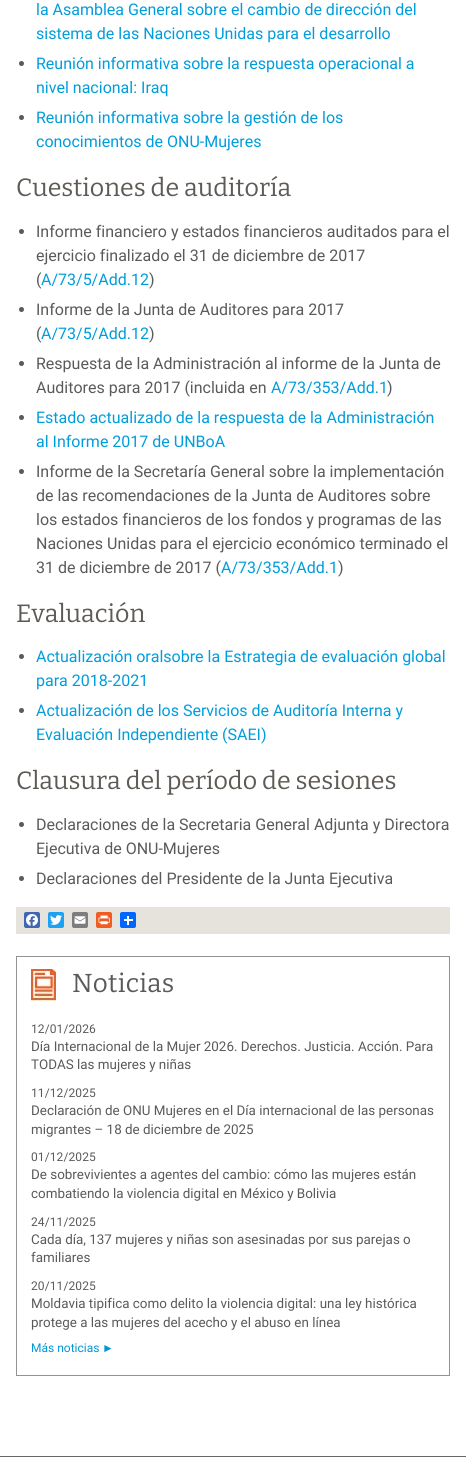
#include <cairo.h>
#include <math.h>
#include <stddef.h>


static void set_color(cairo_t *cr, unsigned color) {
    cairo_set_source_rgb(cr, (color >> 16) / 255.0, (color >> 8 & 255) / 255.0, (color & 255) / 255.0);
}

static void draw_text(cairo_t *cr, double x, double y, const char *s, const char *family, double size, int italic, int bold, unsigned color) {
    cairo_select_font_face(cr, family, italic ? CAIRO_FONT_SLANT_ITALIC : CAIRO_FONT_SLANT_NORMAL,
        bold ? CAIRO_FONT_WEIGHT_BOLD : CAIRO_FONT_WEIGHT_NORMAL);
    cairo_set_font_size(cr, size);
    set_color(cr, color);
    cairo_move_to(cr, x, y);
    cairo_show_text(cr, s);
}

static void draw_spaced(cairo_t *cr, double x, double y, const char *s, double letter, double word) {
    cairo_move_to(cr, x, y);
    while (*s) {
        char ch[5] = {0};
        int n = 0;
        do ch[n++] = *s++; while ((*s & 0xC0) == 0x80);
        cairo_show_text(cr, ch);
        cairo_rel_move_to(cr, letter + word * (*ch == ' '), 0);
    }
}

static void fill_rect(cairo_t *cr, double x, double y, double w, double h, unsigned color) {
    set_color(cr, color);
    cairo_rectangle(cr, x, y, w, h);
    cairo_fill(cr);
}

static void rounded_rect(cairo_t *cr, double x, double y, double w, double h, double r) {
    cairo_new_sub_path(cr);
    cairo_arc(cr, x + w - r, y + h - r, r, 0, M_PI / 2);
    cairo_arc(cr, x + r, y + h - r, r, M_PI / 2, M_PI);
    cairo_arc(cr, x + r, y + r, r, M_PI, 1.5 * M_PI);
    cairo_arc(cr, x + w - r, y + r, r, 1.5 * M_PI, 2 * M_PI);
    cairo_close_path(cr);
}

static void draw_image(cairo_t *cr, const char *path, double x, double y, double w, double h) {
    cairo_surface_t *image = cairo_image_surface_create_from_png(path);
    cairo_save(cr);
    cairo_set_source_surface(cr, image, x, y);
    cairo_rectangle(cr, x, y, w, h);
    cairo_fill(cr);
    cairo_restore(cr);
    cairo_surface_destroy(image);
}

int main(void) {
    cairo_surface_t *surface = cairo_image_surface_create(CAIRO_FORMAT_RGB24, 466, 1466);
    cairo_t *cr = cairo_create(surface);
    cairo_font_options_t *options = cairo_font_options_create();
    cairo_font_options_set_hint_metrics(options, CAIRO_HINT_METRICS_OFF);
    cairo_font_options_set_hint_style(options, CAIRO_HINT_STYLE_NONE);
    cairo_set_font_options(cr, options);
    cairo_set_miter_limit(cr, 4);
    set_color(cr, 0xFFFFFF);
    cairo_paint(cr);
    draw_text(cr, 36, 15, "la Asamblea General sobre el cambio de dirección del", "Roboto", 16, 0, 0, 0x009DDC);
    draw_text(cr, 36, 39, "sistema de las Naciones Unidas para el desarrollo", "Roboto", 16, 0, 0, 0x009DDC);
    set_color(cr, 0x595A5C);
    cairo_new_path(cr);
    cairo_arc(cr, 21.5, 63.5, 2.5, 0, 2 * M_PI);
    cairo_fill(cr);
    draw_text(cr, 36, 69, "Reunión informativa sobre la respuesta operacional a", "Roboto", 16, 0, 0, 0x009DDC);
    draw_text(cr, 36, 93, "nivel nacional: Iraq", "Roboto", 16, 0, 0, 0x009DDC);
    set_color(cr, 0x595A5C);
    cairo_new_path(cr);
    cairo_arc(cr, 21.5, 117.5, 2.5, 0, 2 * M_PI);
    cairo_fill(cr);
    draw_text(cr, 36, 123, "Reunión informativa sobre la gestión de los", "Roboto", 16, 0, 0, 0x009DDC);
    draw_text(cr, 36, 147, "conocimientos de ONU-Mujeres", "Roboto", 16, 0, 0, 0x009DDC);
    draw_text(cr, 16, 196, "Cuestiones de auditoría", "Bitter", 25, 0, 0, 0x5E5A55);
    set_color(cr, 0x595A5C);
    cairo_new_path(cr);
    cairo_arc(cr, 21.5, 231.5, 2.5, 0, 2 * M_PI);
    cairo_fill(cr);
    draw_text(cr, 36, 237, "Informe financiero y estados financieros auditados para el", "Roboto", 16, 0, 0, 0x595A5C);
    draw_text(cr, 36, 261, "ejercicio finalizado el 31 de diciembre de 2017", "Roboto", 16, 0, 0, 0x595A5C);
    draw_text(cr, 36, 285, "(", "Roboto", 16, 0, 0, 0x595A5C);
    draw_text(cr, 41, 285, "A/73/5/Add.12", "Roboto", 16, 0, 0, 0x009DDC);
    draw_text(cr, 149, 285, ")", "Roboto", 16, 0, 0, 0x595A5C);
    cairo_new_path(cr);
    cairo_arc(cr, 21.5, 309.5, 2.5, 0, 2 * M_PI);
    cairo_fill(cr);
    draw_text(cr, 36, 315, "Informe de la Junta de Auditores para 2017", "Roboto", 16, 0, 0, 0x595A5C);
    draw_text(cr, 36, 339, "(", "Roboto", 16, 0, 0, 0x595A5C);
    draw_text(cr, 41, 339, "A/73/5/Add.12", "Roboto", 16, 0, 0, 0x009DDC);
    draw_text(cr, 149, 339, ")", "Roboto", 16, 0, 0, 0x595A5C);
    cairo_new_path(cr);
    cairo_arc(cr, 21.5, 363.5, 2.5, 0, 2 * M_PI);
    cairo_fill(cr);
    draw_text(cr, 36, 369, "Respuesta de la Administración al informe de la Junta de", "Roboto", 16, 0, 0, 0x595A5C);
    draw_text(cr, 36, 393, "Auditores para 2017 (incluida en", "Roboto", 16, 0, 0, 0x595A5C);
    draw_text(cr, 271, 393, "A/73/353/Add.1", "Roboto", 16, 0, 0, 0x009DDC);
    draw_text(cr, 387, 393, ")", "Roboto", 16, 0, 0, 0x595A5C);
    cairo_new_path(cr);
    cairo_arc(cr, 21.5, 417.5, 2.5, 0, 2 * M_PI);
    cairo_fill(cr);
    draw_text(cr, 36, 423, "Estado actualizado de la respuesta de la Administración", "Roboto", 16, 0, 0, 0x009DDC);
    draw_text(cr, 36, 447, "al Informe 2017 de UNBoA", "Roboto", 16, 0, 0, 0x009DDC);
    set_color(cr, 0x595A5C);
    cairo_new_path(cr);
    cairo_arc(cr, 21.5, 471.5, 2.5, 0, 2 * M_PI);
    cairo_fill(cr);
    draw_text(cr, 36, 477, "Informe de la Secretaría General sobre la implementación", "Roboto", 16, 0, 0, 0x595A5C);
    draw_text(cr, 36, 501, "de las recomendaciones de la Junta de Auditores sobre", "Roboto", 16, 0, 0, 0x595A5C);
    draw_text(cr, 36, 525, "los estados financieros de los fondos y programas de las", "Roboto", 16, 0, 0, 0x595A5C);
    draw_text(cr, 36, 549, "Naciones Unidas para el ejercicio económico terminado el", "Roboto", 16, 0, 0, 0x595A5C);
    draw_text(cr, 36, 573, "31 de diciembre de 2017 (", "Roboto", 16, 0, 0, 0x595A5C);
    draw_text(cr, 221, 573, "A/73/353/Add.1", "Roboto", 16, 0, 0, 0x009DDC);
    draw_text(cr, 338, 573, ")", "Roboto", 16, 0, 0, 0x595A5C);
    draw_text(cr, 16, 622, "Evaluación", "Bitter", 25, 0, 0, 0x5E5A55);
    set_color(cr, 0x595A5C);
    cairo_new_path(cr);
    cairo_arc(cr, 21.5, 656.5, 2.5, 0, 2 * M_PI);
    cairo_fill(cr);
    draw_text(cr, 36, 662, "Actualización oralsobre la Estrategia de evaluación global", "Roboto", 16, 0, 0, 0x009DDC);
    draw_text(cr, 36, 686, "para 2018-2021", "Roboto", 16, 0, 0, 0x009DDC);
    set_color(cr, 0x595A5C);
    cairo_new_path(cr);
    cairo_arc(cr, 21.5, 710.5, 2.5, 0, 2 * M_PI);
    cairo_fill(cr);
    draw_text(cr, 36, 716, "Actualización de los Servicios de Auditoría Interna y", "Roboto", 16, 0, 0, 0x009DDC);
    draw_text(cr, 36, 740, "Evaluación Independiente (SAEI)", "Roboto", 16, 0, 0, 0x009DDC);
    draw_text(cr, 16, 789, "Clausura del período de sesiones", "Bitter", 25, 0, 0, 0x5E5A55);
    set_color(cr, 0x595A5C);
    cairo_new_path(cr);
    cairo_arc(cr, 21.5, 824.5, 2.5, 0, 2 * M_PI);
    cairo_fill(cr);
    draw_text(cr, 36, 830, "Declaraciones de la Secretaria General Adjunta y Directora", "Roboto", 16, 0, 0, 0x595A5C);
    draw_text(cr, 36, 854, "Ejecutiva de ONU-Mujeres", "Roboto", 16, 0, 0, 0x595A5C);
    cairo_new_path(cr);
    cairo_arc(cr, 21.5, 878.5, 2.5, 0, 2 * M_PI);
    cairo_fill(cr);
    draw_text(cr, 36, 884, "Declaraciones del Presidente de la Junta Ejecutiva", "Roboto", 16, 0, 0, 0x595A5C);
    fill_rect(cr, 16, 907, 434, 27, 0xE5E3DC);
    set_color(cr, 0x4267B2);
    rounded_rect(cr, 24, 912, 16, 16, 2);
    cairo_fill(cr);
    draw_image(cr, "assets/img1.png", 26, 914, 12, 12);
    set_color(cr, 0x1DA1F2);
    rounded_rect(cr, 48, 912, 16, 16, 2);
    cairo_fill(cr);
    draw_image(cr, "assets/img2.png", 50, 915, 12, 10);
    set_color(cr, 0x7D7D7D);
    rounded_rect(cr, 72, 912, 16, 16, 2);
    cairo_fill(cr);
    draw_image(cr, "assets/img3.png", 74, 916, 12, 8);
    set_color(cr, 0xF05D22);
    rounded_rect(cr, 96, 912, 16, 16, 2);
    cairo_fill(cr);
    draw_image(cr, "assets/img4.png", 98, 915, 12, 10);
    set_color(cr, 0x0166FF);
    rounded_rect(cr, 120, 912, 16, 16, 2);
    cairo_fill(cr);
    fill_rect(cr, 127, 916, 2, 9, 0xFFFFFF);
    fill_rect(cr, 124, 919, 9, 2, 0xFFFFFF);
    cairo_rectangle(cr, 16.5, 956.5, 433, 419);
    set_color(cr, 0x939393);
    cairo_set_line_width(cr, 1);
    cairo_stroke(cr);
    draw_image(cr, "assets/img5.png", 31, 969, 25, 32);
    cairo_select_font_face(cr, "Bitter", CAIRO_FONT_SLANT_NORMAL, CAIRO_FONT_WEIGHT_NORMAL);
    cairo_set_font_size(cr, 26);
    set_color(cr, 0x595A5C);
    draw_spaced(cr, 72, 992, "Noticias", 0.25, 0);
    cairo_select_font_face(cr, "Roboto", CAIRO_FONT_SLANT_NORMAL, CAIRO_FONT_WEIGHT_NORMAL);
    cairo_set_font_size(cr, 12);
    draw_spaced(cr, 31, 1033, "12/01/2026", 0.1, 0);
    draw_text(cr, 31, 1051, "Día Internacional de la Mujer 2026. Derechos. Justicia. Acción. Para", "Roboto", 13.4, 0, 0, 0x595A5C);
    draw_text(cr, 31, 1069, "TODAS las mujeres y niñas", "Roboto", 13.4, 0, 0, 0x595A5C);
    cairo_set_font_size(cr, 12);
    draw_spaced(cr, 31, 1097, "11/12/2025", 0.1, 0);
    draw_text(cr, 31, 1115, "Declaración de ONU Mujeres en el Día internacional de las personas", "Roboto", 13.4, 0, 0, 0x595A5C);
    draw_text(cr, 31, 1134, "migrantes – 18 de diciembre de 2025", "Roboto", 13.4, 0, 0, 0x595A5C);
    cairo_set_font_size(cr, 12);
    draw_spaced(cr, 31, 1161, "01/12/2025", 0.1, 0);
    draw_text(cr, 31, 1179, "De sobrevivientes a agentes del cambio: cómo las mujeres están", "Roboto", 13.4, 0, 0, 0x595A5C);
    draw_text(cr, 31, 1198, "combatiendo la violencia digital en México y Bolivia", "Roboto", 13.4, 0, 0, 0x595A5C);
    cairo_set_font_size(cr, 12);
    draw_spaced(cr, 31, 1226, "24/11/2025", 0.1, 0);
    draw_text(cr, 31, 1244, "Cada día, 137 mujeres y niñas son asesinadas por sus parejas o", "Roboto", 13.4, 0, 0, 0x595A5C);
    draw_text(cr, 31, 1262, "familiares", "Roboto", 13.4, 0, 0, 0x595A5C);
    cairo_set_font_size(cr, 12);
    draw_spaced(cr, 31, 1290, "20/11/2025", 0.1, 0);
    draw_text(cr, 31, 1308, "Moldavia tipifica como delito la violencia digital: una ley histórica", "Roboto", 13.4, 0, 0, 0x595A5C);
    draw_text(cr, 31, 1327, "protege a las mujeres del acecho y el abuso en línea", "Roboto", 13.4, 0, 0, 0x595A5C);
    draw_text(cr, 31, 1352, "Más noticias", "Roboto", 12, 0, 0, 0x0397D6);
    draw_text(cr, 102, 1352, "►", "Liberation Sans", 12, 0, 0, 0x0397D6);
    fill_rect(cr, 0, 1456, 466, 1, 0x666766);
    cairo_surface_write_to_png(surface, "output.png");
    cairo_font_options_destroy(options);
    cairo_destroy(cr);
    cairo_surface_destroy(surface);
    return 0;
}
